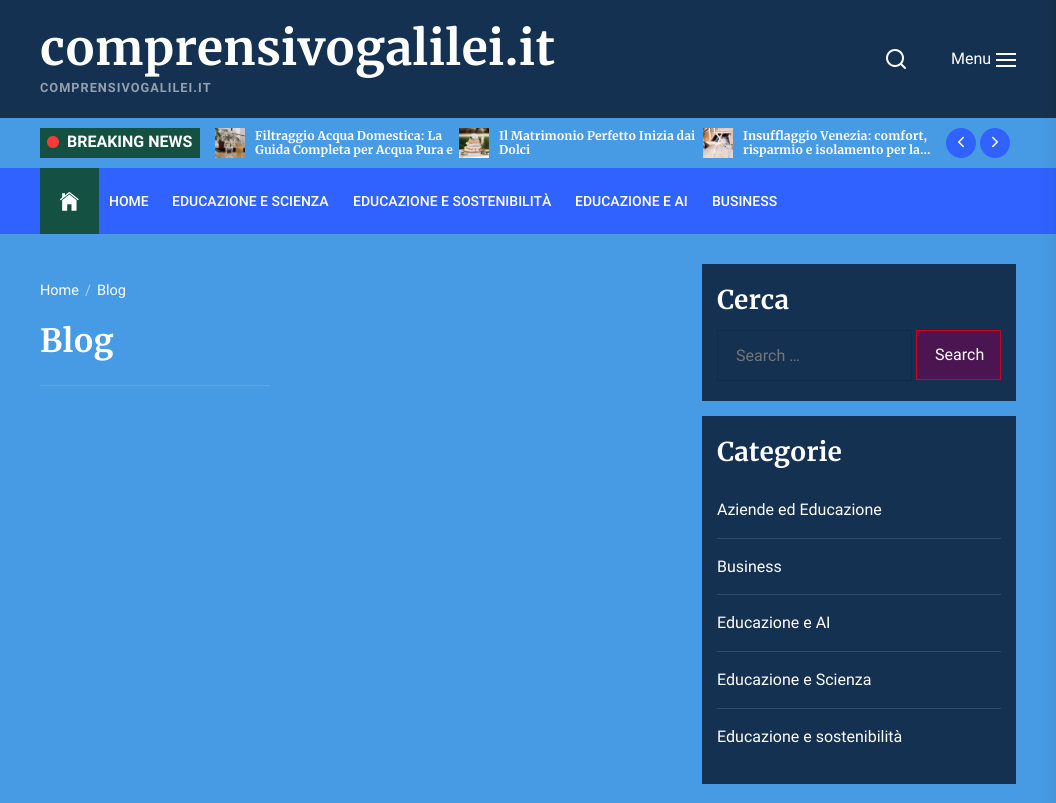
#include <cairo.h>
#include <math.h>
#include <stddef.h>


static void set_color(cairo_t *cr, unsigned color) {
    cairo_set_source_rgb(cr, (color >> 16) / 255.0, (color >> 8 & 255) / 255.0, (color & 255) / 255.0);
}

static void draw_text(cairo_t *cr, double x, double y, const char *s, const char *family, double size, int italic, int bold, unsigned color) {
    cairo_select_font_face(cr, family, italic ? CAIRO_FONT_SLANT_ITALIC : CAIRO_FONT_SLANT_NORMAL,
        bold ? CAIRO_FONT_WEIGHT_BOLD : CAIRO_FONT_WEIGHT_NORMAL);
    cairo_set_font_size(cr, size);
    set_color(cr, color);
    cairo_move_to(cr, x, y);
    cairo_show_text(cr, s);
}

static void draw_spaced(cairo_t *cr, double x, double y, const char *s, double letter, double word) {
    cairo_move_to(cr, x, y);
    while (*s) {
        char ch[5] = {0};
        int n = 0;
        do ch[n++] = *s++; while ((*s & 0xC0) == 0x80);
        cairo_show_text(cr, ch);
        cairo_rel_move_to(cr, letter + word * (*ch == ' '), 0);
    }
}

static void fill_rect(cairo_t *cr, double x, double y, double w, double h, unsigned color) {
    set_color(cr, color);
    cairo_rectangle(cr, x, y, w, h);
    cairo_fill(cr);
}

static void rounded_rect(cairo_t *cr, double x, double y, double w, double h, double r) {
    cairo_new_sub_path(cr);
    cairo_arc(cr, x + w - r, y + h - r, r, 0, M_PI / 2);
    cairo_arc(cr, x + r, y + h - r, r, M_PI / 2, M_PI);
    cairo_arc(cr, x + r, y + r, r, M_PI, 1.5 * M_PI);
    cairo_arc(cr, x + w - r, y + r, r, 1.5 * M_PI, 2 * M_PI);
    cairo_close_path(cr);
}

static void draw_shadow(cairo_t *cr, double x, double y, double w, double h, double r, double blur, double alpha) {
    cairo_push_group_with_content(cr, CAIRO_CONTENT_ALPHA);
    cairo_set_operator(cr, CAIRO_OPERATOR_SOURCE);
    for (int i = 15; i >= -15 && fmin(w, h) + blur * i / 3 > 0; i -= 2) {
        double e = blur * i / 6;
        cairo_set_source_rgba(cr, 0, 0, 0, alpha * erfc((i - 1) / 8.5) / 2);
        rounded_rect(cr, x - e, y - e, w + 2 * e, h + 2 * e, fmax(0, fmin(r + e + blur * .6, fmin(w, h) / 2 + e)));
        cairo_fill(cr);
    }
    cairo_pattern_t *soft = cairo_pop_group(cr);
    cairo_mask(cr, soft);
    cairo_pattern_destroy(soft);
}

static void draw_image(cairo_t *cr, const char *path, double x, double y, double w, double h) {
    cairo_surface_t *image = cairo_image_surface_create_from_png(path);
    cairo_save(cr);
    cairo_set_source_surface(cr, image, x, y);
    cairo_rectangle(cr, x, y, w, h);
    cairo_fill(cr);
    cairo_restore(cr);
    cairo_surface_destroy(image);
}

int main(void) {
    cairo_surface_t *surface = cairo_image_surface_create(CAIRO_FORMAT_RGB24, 1056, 803);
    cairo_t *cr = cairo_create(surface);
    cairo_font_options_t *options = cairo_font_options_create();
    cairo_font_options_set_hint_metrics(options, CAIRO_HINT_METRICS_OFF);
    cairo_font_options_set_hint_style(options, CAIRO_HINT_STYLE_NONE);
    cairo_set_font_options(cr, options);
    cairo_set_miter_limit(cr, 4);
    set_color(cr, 0x479BE5);
    cairo_paint(cr);
    fill_rect(cr, 0, 0, 1056, 118, 0x153151);
    draw_text(cr, 40, 65, "comprensivogalilei.it", "Merriweather", 48, 0, 1, 0xFFFFFF);
    cairo_select_font_face(cr, "Roboto", CAIRO_FONT_SLANT_NORMAL, CAIRO_FONT_WEIGHT_BOLD);
    cairo_set_font_size(cr, 12.75);
    set_color(cr, 0x93A0AF);
    draw_spaced(cr, 40, 92, "COMPRENSIVOGALILEI.IT", 1, 0);
    draw_image(cr, "assets/img1.png", 886, 49, 20, 20);
    draw_text(cr, 951, 64, "Menu", "Roboto", 16, 0, 0, 0xFFFFFF);
    fill_rect(cr, 996, 53, 20, 2, 0xFFFFFF);
    fill_rect(cr, 996, 59, 20, 2, 0xFFFFFF);
    fill_rect(cr, 996, 65, 20, 2, 0xFFFFFF);
    fill_rect(cr, 40, 128, 160, 30, 0x155143);
    set_color(cr, 0xFA3A3A);
    cairo_new_path(cr);
    cairo_arc(cr, 53, 142, 6, 0, 2 * M_PI);
    cairo_fill(cr);
    draw_text(cr, 67, 147, "BREAKING NEWS", "Roboto", 16, 0, 1, 0xFFFFFF);
    draw_image(cr, "assets/img2.png", 215, 128, 30, 30);
    draw_text(cr, 255, 140, "Filtraggio Acqua Domestica: La", "Merriweather", 12, 0, 1, 0xFFFFFF);
    draw_text(cr, 255, 154, "Guida Completa per Acqua Pura e", "Merriweather", 12, 0, 1, 0xFFFFFF);
    draw_image(cr, "assets/img3.png", 459, 128, 30, 30);
    draw_text(cr, 499, 140, "Il Matrimonio Perfetto Inizia dai", "Merriweather", 12, 0, 1, 0xFFFFFF);
    draw_text(cr, 499, 154, "Dolci", "Merriweather", 12, 0, 1, 0xFFFFFF);
    draw_image(cr, "assets/img4.png", 703, 128, 30, 30);
    draw_text(cr, 743, 140, "Insufflaggio Venezia: comfort,", "Merriweather", 12, 0, 1, 0xFFFFFF);
    draw_text(cr, 743, 154, "risparmio e isolamento per la…", "Merriweather", 12, 0, 1, 0xFFFFFF);
    set_color(cr, 0x3062FF);
    cairo_new_path(cr);
    cairo_arc(cr, 961, 143, 15, 0, 2 * M_PI);
    cairo_fill(cr);
    draw_image(cr, "assets/img5.png", 958, 136, 6, 12);
    cairo_arc(cr, 995, 143, 15, 0, 2 * M_PI);
    cairo_fill(cr);
    draw_image(cr, "assets/img6.png", 992, 136, 6, 12);
    fill_rect(cr, 0, 168, 1056, 66, 0x3062FF);
    fill_rect(cr, 40, 168, 59, 66, 0x155143);
    draw_image(cr, "assets/img7.png", 60, 192, 19, 19);
    draw_text(cr, 109, 206, "HOME", "Roboto Medium", 14, 0, 0, 0xFFFFFF);
    draw_text(cr, 172, 206, "EDUCAZIONE E SCIENZA", "Roboto Medium", 14, 0, 0, 0xFFFFFF);
    draw_text(cr, 353, 206, "EDUCAZIONE E SOSTENIBILITÀ", "Roboto Medium", 14, 0, 0, 0xFFFFFF);
    draw_text(cr, 575, 206, "EDUCAZIONE E AI", "Roboto Medium", 14, 0, 0, 0xFFFFFF);
    draw_text(cr, 712, 206, "BUSINESS", "Roboto Medium", 14, 0, 0, 0xFFFFFF);
    draw_text(cr, 40, 295, "Home", "Roboto", 14.5, 0, 0, 0xFFFFFF);
    draw_text(cr, 85, 295, "/", "Roboto", 14.5, 0, 0, 0xAAD1F3);
    draw_text(cr, 97, 295, "Blog", "Roboto", 14.5, 0, 0, 0xFFFFFF);
    draw_text(cr, 40, 352, "Blog", "Merriweather", 32, 0, 1, 0xFFFFFF);
    fill_rect(cr, 40, 385, 230, 1, 0x5DA7E8);
    fill_rect(cr, 702, 264, 314, 137, 0x153151);
    draw_text(cr, 717, 309, "Cerca", "Merriweather", 26, 0, 1, 0xFFFFFF);
    cairo_rectangle(cr, 717.5, 330.5, 194, 50);
    set_color(cr, 0x122B47);
    cairo_set_line_width(cr, 1);
    cairo_stroke(cr);
    draw_text(cr, 736, 361, "Search …", "Roboto", 16, 0, 0, 0x757575);
    set_color(cr, 0x4B1551);
    cairo_rectangle(cr, 916.5, 330.5, 84, 49);
    cairo_fill_preserve(cr);
    set_color(cr, 0xD0021B);
    cairo_stroke(cr);
    draw_text(cr, 935, 360, "Search", "Roboto", 16, 0, 0, 0xFFFFFF);
    fill_rect(cr, 702, 416, 314, 368, 0x153151);
    draw_text(cr, 717, 461, "Categorie", "Merriweather", 26, 0, 1, 0xFFFFFF);
    fill_rect(cr, 717, 538, 284, 1, 0x314A66);
    draw_text(cr, 717, 515, "Aziende ed Educazione", "Roboto", 16, 0, 0, 0xFFFFFF);
    fill_rect(cr, 717, 594, 284, 1, 0x314A66);
    draw_text(cr, 717, 572, "Business", "Roboto", 16, 0, 0, 0xFFFFFF);
    fill_rect(cr, 717, 651, 284, 1, 0x314A66);
    draw_text(cr, 717, 628, "Educazione e AI", "Roboto", 16, 0, 0, 0xFFFFFF);
    fill_rect(cr, 717, 708, 284, 1, 0x314A66);
    draw_text(cr, 717, 685, "Educazione e Scienza", "Roboto", 16, 0, 0, 0xFFFFFF);
    draw_text(cr, 717, 742, "Educazione e sostenibilità", "Roboto", 16, 0, 0, 0xFFFFFF);
    set_color(cr, 0x000000);
    draw_shadow(cr, 1056, 0, 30, 803, 0, 10, 0.1);
    cairo_surface_write_to_png(surface, "output.png");
    cairo_font_options_destroy(options);
    cairo_destroy(cr);
    cairo_surface_destroy(surface);
    return 0;
}
